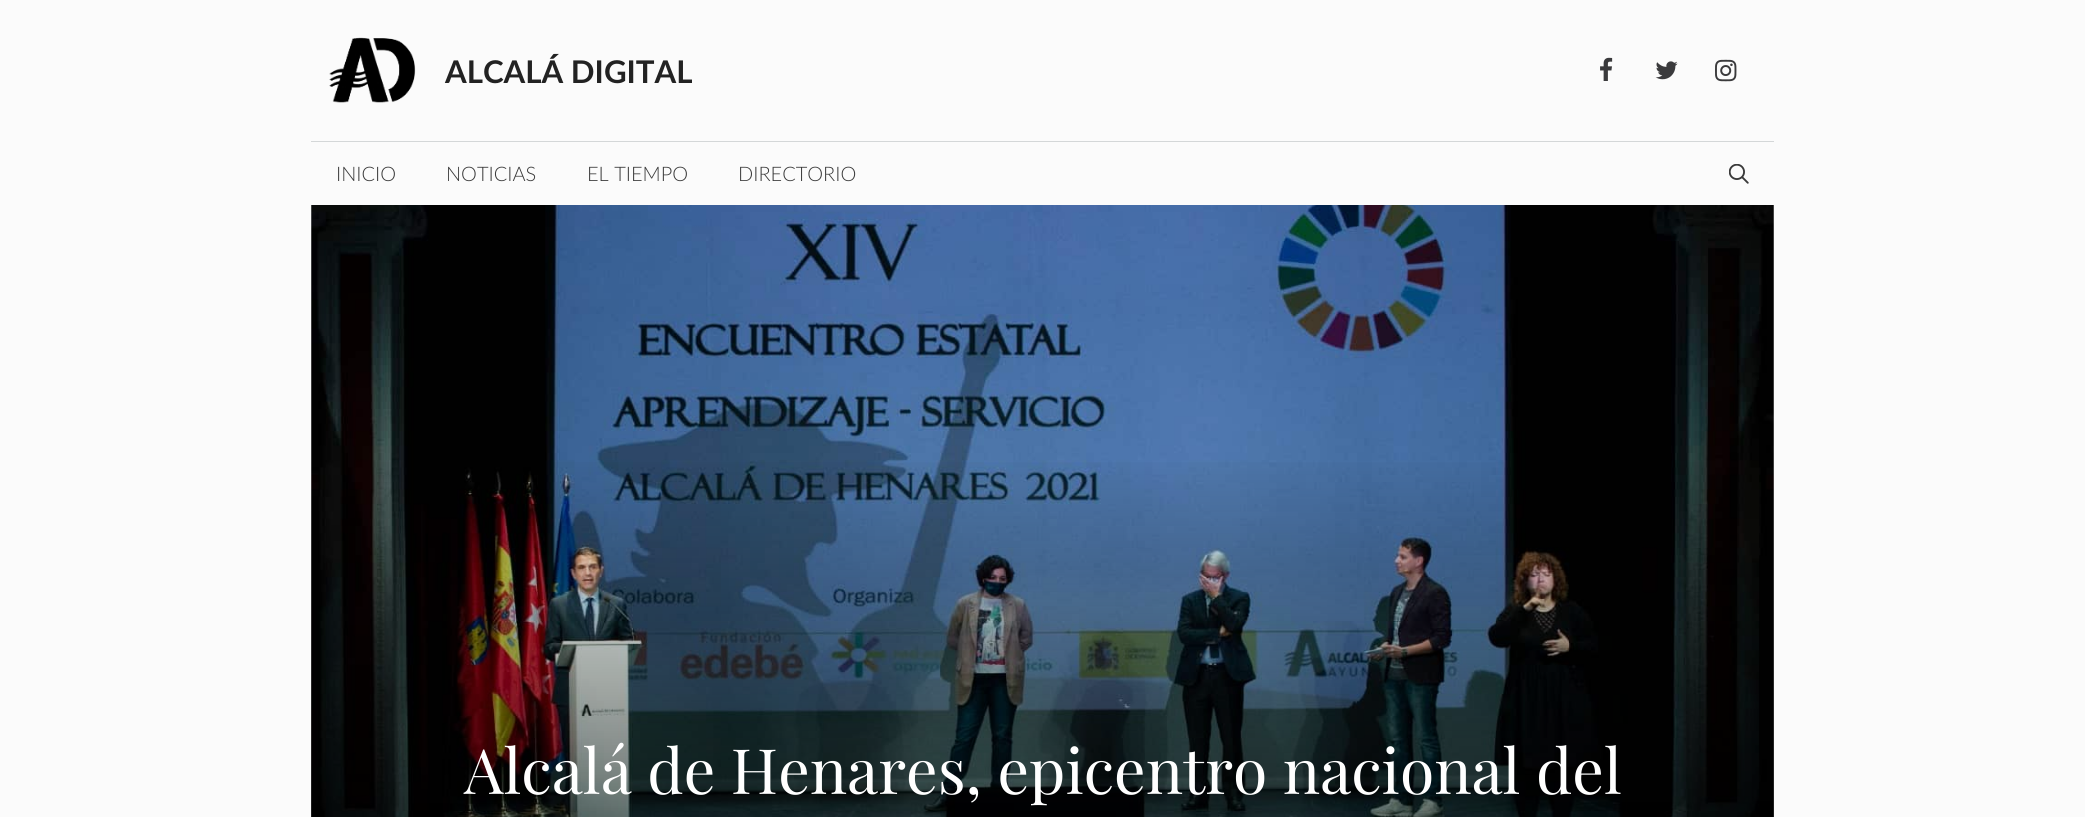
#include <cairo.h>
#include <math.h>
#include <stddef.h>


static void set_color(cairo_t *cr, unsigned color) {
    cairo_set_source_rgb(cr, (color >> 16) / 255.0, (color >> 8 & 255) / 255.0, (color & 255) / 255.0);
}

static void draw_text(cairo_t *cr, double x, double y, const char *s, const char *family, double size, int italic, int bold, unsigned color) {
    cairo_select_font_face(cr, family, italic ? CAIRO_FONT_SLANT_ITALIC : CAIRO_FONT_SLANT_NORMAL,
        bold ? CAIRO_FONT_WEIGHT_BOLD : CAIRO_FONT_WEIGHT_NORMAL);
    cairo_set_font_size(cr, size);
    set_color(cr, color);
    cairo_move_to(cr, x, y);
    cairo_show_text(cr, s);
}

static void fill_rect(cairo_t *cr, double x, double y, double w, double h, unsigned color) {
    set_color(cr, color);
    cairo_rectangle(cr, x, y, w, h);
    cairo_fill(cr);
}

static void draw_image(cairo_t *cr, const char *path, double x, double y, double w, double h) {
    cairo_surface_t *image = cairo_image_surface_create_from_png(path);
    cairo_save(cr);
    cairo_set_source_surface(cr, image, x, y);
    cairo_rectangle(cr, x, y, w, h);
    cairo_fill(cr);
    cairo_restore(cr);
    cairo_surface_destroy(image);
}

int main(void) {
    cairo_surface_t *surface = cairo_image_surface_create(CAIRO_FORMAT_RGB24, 2085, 817);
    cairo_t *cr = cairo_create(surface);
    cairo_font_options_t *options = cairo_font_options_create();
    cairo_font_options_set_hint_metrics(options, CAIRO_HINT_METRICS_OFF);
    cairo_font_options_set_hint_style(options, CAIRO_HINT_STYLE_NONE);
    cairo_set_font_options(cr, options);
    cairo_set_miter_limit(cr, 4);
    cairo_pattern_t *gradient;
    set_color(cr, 0xFBFBFB);
    cairo_paint(cr);
    draw_image(cr, "assets/img1.png", 329, 37, 87, 66);
    draw_text(cr, 445, 83, "ALCALÁ DIGITAL", "Lato", 31.25, 0, 1, 0x222222);
    draw_image(cr, "assets/img2.png", 1600, 57, 13, 24);
    draw_image(cr, "assets/img3.png", 1655, 61, 23, 19);
    draw_image(cr, "assets/img4.png", 1715, 59, 22, 23);
    fill_rect(cr, 311, 141, 1463, 1, 0xD4D7D8);
    draw_text(cr, 336, 181, "INICIO", "Lato Light", 20, 0, 0, 0x3A3A3A);
    draw_text(cr, 446, 181, "NOTICIAS", "Lato Light", 20, 0, 0, 0x3A3A3A);
    draw_text(cr, 587, 181, "EL TIEMPO", "Lato Light", 20, 0, 0, 0x3A3A3A);
    draw_text(cr, 738, 181, "DIRECTORIO", "Lato Light", 20, 0, 0, 0x3A3A3A);
    draw_image(cr, "assets/img5.png", 1729, 164, 20, 20);
    draw_image(cr, "assets/img6.png", 311, 205, 1463, 612);
    gradient = cairo_pattern_create_linear(1043, 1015, 1042, 205);
    cairo_pattern_add_color_stop_rgba(gradient, 0, 0, 0, 0, 0.8);
    cairo_pattern_add_color_stop_rgba(gradient, 0.7, 0, 0, 0, 0);
    cairo_set_source(cr, gradient);
    cairo_pattern_destroy(gradient);
    cairo_rectangle(cr, 311, 462, 1463, 355);
    cairo_fill(cr);
    draw_text(cr, 464, 794, "Alcalá de Henares, epicentro nacional del", "Playfair Display", 62.5, 0, 0, 0xFFFFFF);
    cairo_surface_write_to_png(surface, "output.png");
    cairo_font_options_destroy(options);
    cairo_destroy(cr);
    cairo_surface_destroy(surface);
    return 0;
}
